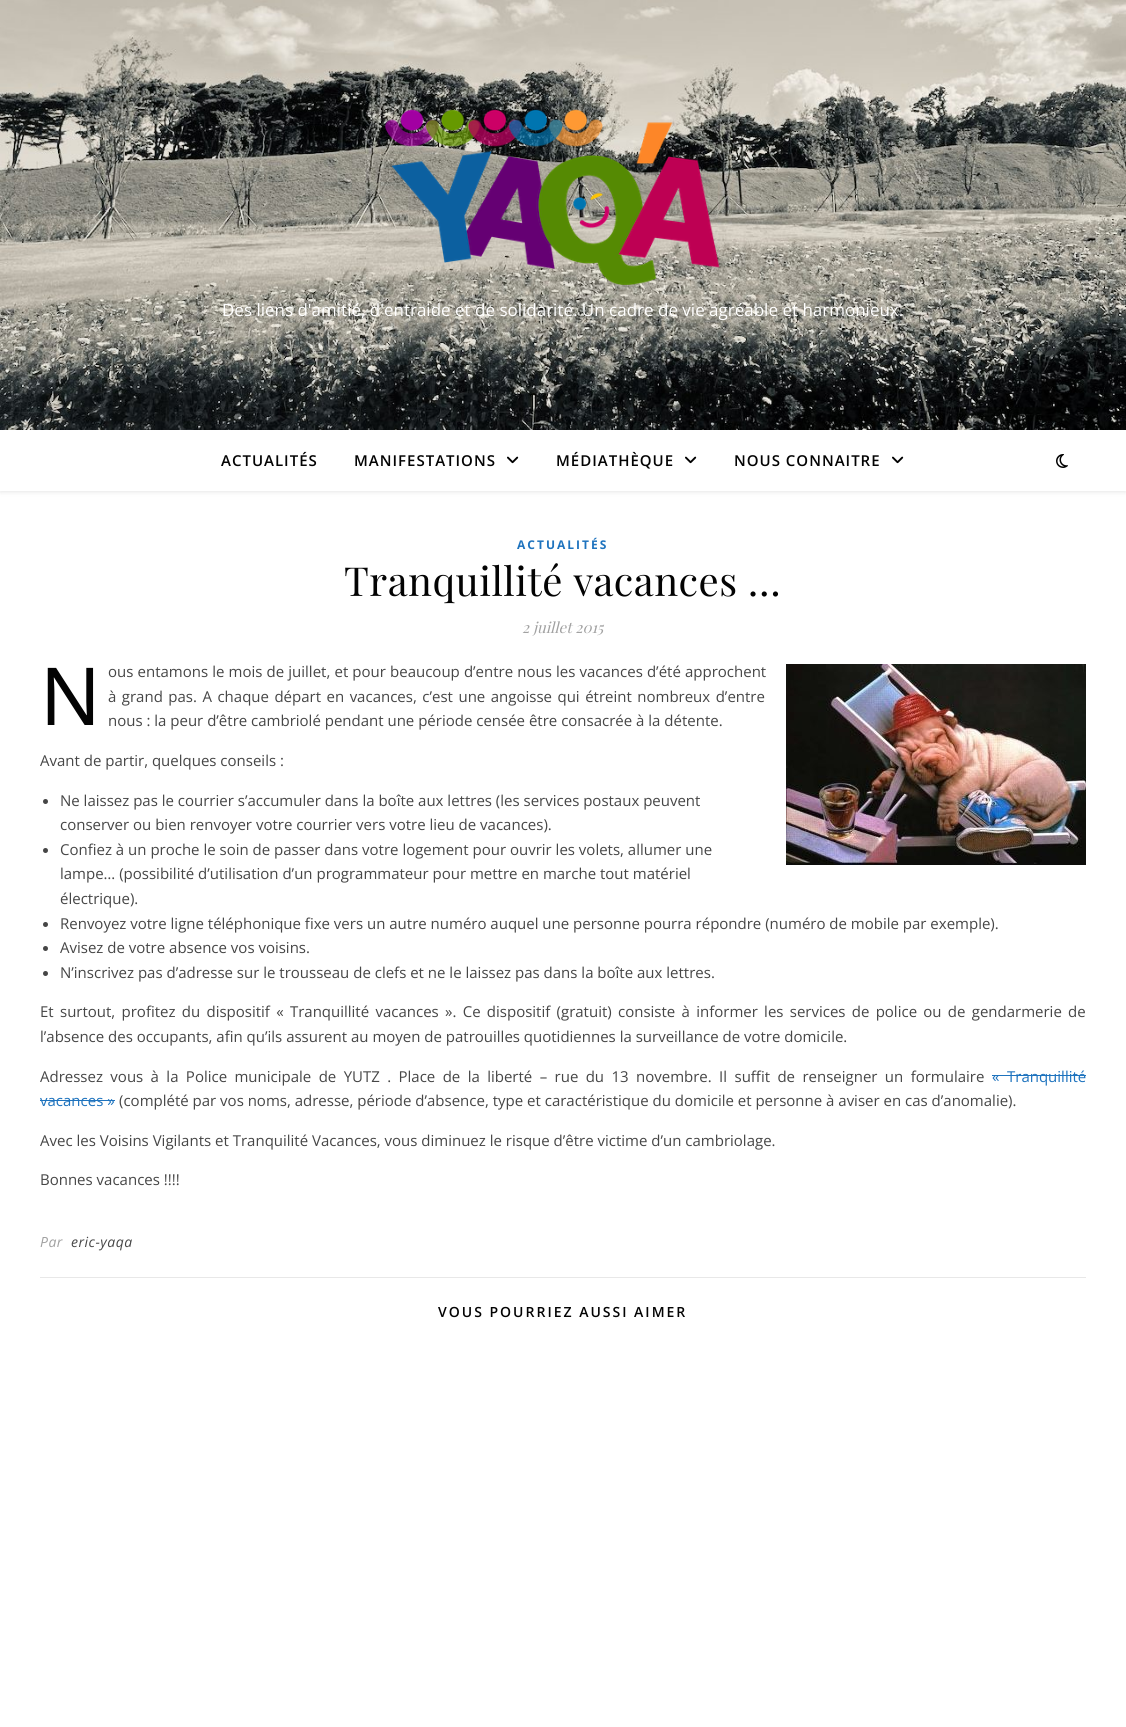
#include <cairo.h>
#include <math.h>
#include <stddef.h>


static void set_color(cairo_t *cr, unsigned color) {
    cairo_set_source_rgb(cr, (color >> 16) / 255.0, (color >> 8 & 255) / 255.0, (color & 255) / 255.0);
}

static void draw_text(cairo_t *cr, double x, double y, const char *s, const char *family, double size, int italic, int bold, unsigned color) {
    cairo_select_font_face(cr, family, italic ? CAIRO_FONT_SLANT_ITALIC : CAIRO_FONT_SLANT_NORMAL,
        bold ? CAIRO_FONT_WEIGHT_BOLD : CAIRO_FONT_WEIGHT_NORMAL);
    cairo_set_font_size(cr, size);
    set_color(cr, color);
    cairo_move_to(cr, x, y);
    cairo_show_text(cr, s);
}

static void draw_spaced(cairo_t *cr, double x, double y, const char *s, double letter, double word) {
    cairo_move_to(cr, x, y);
    while (*s) {
        char ch[5] = {0};
        int n = 0;
        do ch[n++] = *s++; while ((*s & 0xC0) == 0x80);
        cairo_show_text(cr, ch);
        cairo_rel_move_to(cr, letter + word * (*ch == ' '), 0);
    }
}

static void fill_rect(cairo_t *cr, double x, double y, double w, double h, unsigned color) {
    set_color(cr, color);
    cairo_rectangle(cr, x, y, w, h);
    cairo_fill(cr);
}

static void rounded_rect(cairo_t *cr, double x, double y, double w, double h, double r) {
    cairo_new_sub_path(cr);
    cairo_arc(cr, x + w - r, y + h - r, r, 0, M_PI / 2);
    cairo_arc(cr, x + r, y + h - r, r, M_PI / 2, M_PI);
    cairo_arc(cr, x + r, y + r, r, M_PI, 1.5 * M_PI);
    cairo_arc(cr, x + w - r, y + r, r, 1.5 * M_PI, 2 * M_PI);
    cairo_close_path(cr);
}

static void draw_shadow(cairo_t *cr, double x, double y, double w, double h, double r, double blur, double alpha) {
    cairo_push_group_with_content(cr, CAIRO_CONTENT_ALPHA);
    cairo_set_operator(cr, CAIRO_OPERATOR_SOURCE);
    for (int i = 15; i >= -15 && fmin(w, h) + blur * i / 3 > 0; i -= 2) {
        double e = blur * i / 6;
        cairo_set_source_rgba(cr, 0, 0, 0, alpha * erfc((i - 1) / 8.5) / 2);
        rounded_rect(cr, x - e, y - e, w + 2 * e, h + 2 * e, fmax(0, fmin(r + e + blur * .6, fmin(w, h) / 2 + e)));
        cairo_fill(cr);
    }
    cairo_pattern_t *soft = cairo_pop_group(cr);
    cairo_mask(cr, soft);
    cairo_pattern_destroy(soft);
}

static void draw_image(cairo_t *cr, const char *path, double x, double y, double w, double h) {
    cairo_surface_t *image = cairo_image_surface_create_from_png(path);
    cairo_save(cr);
    cairo_set_source_surface(cr, image, x, y);
    cairo_rectangle(cr, x, y, w, h);
    cairo_fill(cr);
    cairo_restore(cr);
    cairo_surface_destroy(image);
}

int main(void) {
    cairo_surface_t *surface = cairo_image_surface_create(CAIRO_FORMAT_RGB24, 1126, 1727);
    cairo_t *cr = cairo_create(surface);
    cairo_font_options_t *options = cairo_font_options_create();
    cairo_font_options_set_hint_metrics(options, CAIRO_HINT_METRICS_OFF);
    cairo_font_options_set_hint_style(options, CAIRO_HINT_STYLE_NONE);
    cairo_set_font_options(cr, options);
    cairo_set_miter_limit(cr, 4);
    set_color(cr, 0xFFFFFF);
    cairo_paint(cr);
    draw_image(cr, "assets/img1.png", 0, 0, 1126, 430);
    draw_image(cr, "assets/img2.png", 385, 109, 335, 177);
    draw_text(cr, 222, 316, "Des liens d'amitié, d'entraide et de solidarité. Un cadre de vie agréable et harmonieux.", "Open Sans", 17, 0, 0, 0xFFFFFF);
    cairo_save(cr);
    cairo_set_fill_rule(cr, CAIRO_FILL_RULE_EVEN_ODD);
    cairo_new_path(cr);
    cairo_move_to(cr, 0, 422);
    cairo_line_to(cr, 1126, 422);
    cairo_line_to(cr, 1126, 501);
    cairo_line_to(cr, 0, 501);
    cairo_close_path(cr);
    cairo_move_to(cr, 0, 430);
    cairo_line_to(cr, 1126, 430);
    cairo_line_to(cr, 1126, 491);
    cairo_line_to(cr, 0, 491);
    cairo_close_path(cr);
    cairo_clip(cr);
    set_color(cr, 0x000000);
    draw_shadow(cr, 0, 431, 1126, 61, 0, 2.5, 0.1);
    cairo_restore(cr);
    cairo_select_font_face(cr, "Open Sans SemiBold", CAIRO_FONT_SLANT_NORMAL, CAIRO_FONT_WEIGHT_NORMAL);
    cairo_set_font_size(cr, 15);
    set_color(cr, 0x030303);
    draw_spaced(cr, 221, 466, "ACTUALITÉS", 1, 0);
    draw_spaced(cr, 354, 466, "MANIFESTATIONS", 1, 0);
    draw_image(cr, "assets/img3.png", 507, 456, 12, 8);
    draw_spaced(cr, 556, 466, "MÉDIATHÈQUE", 1, 0);
    draw_image(cr, "assets/img3.png", 685, 456, 12, 8);
    draw_spaced(cr, 734, 466, "NOUS CONNAITRE", 1, 0);
    draw_image(cr, "assets/img3.png", 892, 456, 12, 8);
    draw_image(cr, "assets/img4.png", 1056, 454, 12, 14);
    cairo_select_font_face(cr, "Open Sans", CAIRO_FONT_SLANT_NORMAL, CAIRO_FONT_WEIGHT_BOLD);
    cairo_set_font_size(cr, 12);
    set_color(cr, 0x1E73BE);
    draw_spaced(cr, 517, 549, "ACTUALITÉS", 2, 0);
    cairo_select_font_face(cr, "Playfair Display", CAIRO_FONT_SLANT_NORMAL, CAIRO_FONT_WEIGHT_NORMAL);
    cairo_set_font_size(cr, 40);
    set_color(cr, 0x030303);
    draw_spaced(cr, 344, 596, "Tranquillité vacances …", 0.5, 0);
    draw_text(cr, 522, 633, "2 juillet 2015", "Playfair Display", 15, 1, 0, 0xA1A1A1);
    draw_text(cr, 40, 725, "N", "Noto Sans", 80, 0, 0, 0x030303);
    cairo_select_font_face(cr, "Open Sans", CAIRO_FONT_SLANT_NORMAL, CAIRO_FONT_WEIGHT_NORMAL);
    cairo_set_font_size(cr, 15);
    set_color(cr, 0x464646);
    draw_spaced(cr, 108, 677, "ous entamons le mois de juillet, et pour beaucoup d’entre nous les vacances d’été approchent", 0, 0.25);
    draw_image(cr, "assets/img5.png", 786, 664, 300, 201);
    draw_spaced(cr, 108, 702, "à grand pas. A chaque départ en vacances, c’est une angoisse qui étreint nombreux d’entre", 0, 1.6);
    draw_text(cr, 108, 726, "nous : la peur d’être cambriolé pendant une période censée être consacrée à la détente.", "Open Sans", 15, 0, 0, 0x464646);
    draw_text(cr, 40, 766, "Avant de partir, quelques conseils :", "Open Sans", 15, 0, 0, 0x464646);
    cairo_new_path(cr);
    cairo_arc(cr, 45.5, 801.5, 2.5, 0, 2 * M_PI);
    cairo_fill(cr);
    draw_text(cr, 60, 806, "Ne laissez pas le courrier s’accumuler dans la boîte aux lettres (les services postaux peuvent", "Open Sans", 15, 0, 0, 0x464646);
    draw_text(cr, 60, 830, "conserver ou bien renvoyer votre courrier vers votre lieu de vacances).", "Open Sans", 15, 0, 0, 0x464646);
    cairo_new_path(cr);
    cairo_arc(cr, 45.5, 850.5, 2.5, 0, 2 * M_PI);
    cairo_fill(cr);
    draw_text(cr, 60, 855, "Confiez à un proche le soin de passer dans votre logement pour ouvrir les volets, allumer une", "Open Sans", 15, 0, 0, 0x464646);
    draw_text(cr, 60, 879, "lampe… (possibilité d’utilisation d’un programmateur pour mettre en marche tout matériel", "Open Sans", 15, 0, 0, 0x464646);
    draw_text(cr, 60, 904, "électrique).", "Open Sans", 15, 0, 0, 0x464646);
    cairo_new_path(cr);
    cairo_arc(cr, 45.5, 924.5, 2.5, 0, 2 * M_PI);
    cairo_fill(cr);
    draw_text(cr, 60, 929, "Renvoyez votre ligne téléphonique fixe vers un autre numéro auquel une personne pourra répondre (numéro de mobile par exemple).", "Open Sans", 15, 0, 0, 0x464646);
    cairo_new_path(cr);
    cairo_arc(cr, 45.5, 948.5, 2.5, 0, 2 * M_PI);
    cairo_fill(cr);
    draw_text(cr, 60, 953, "Avisez de votre absence vos voisins.", "Open Sans", 15, 0, 0, 0x464646);
    cairo_new_path(cr);
    cairo_arc(cr, 45.5, 973.5, 2.5, 0, 2 * M_PI);
    cairo_fill(cr);
    draw_text(cr, 60, 978, "N’inscrivez pas d’adresse sur le trousseau de clefs et ne le laissez pas dans la boîte aux lettres.", "Open Sans", 15, 0, 0, 0x464646);
    draw_spaced(cr, 40, 1017, "Et surtout, profitez du dispositif « Tranquillité vacances ». Ce dispositif (gratuit) consiste à informer les services de police ou de gendarmerie de", 0, 2.4);
    draw_text(cr, 40, 1042, "l’absence des occupants, afin qu’ils assurent au moyen de patrouilles quotidiennes la surveillance de votre domicile.", "Open Sans", 15, 0, 0, 0x464646);
    draw_spaced(cr, 40, 1082, "Adressez vous à la Police municipale de YUTZ . Place de la liberté – rue du 13 novembre. Il suffit de renseigner un formulaire", 0, 3.5);
    draw_text(cr, 992, 1082, "«", "Open Sans", 15, 0, 0, 0x1E73BE);
    draw_text(cr, 1007, 1082, "Tranquillité", "Open Sans", 15, 0, 0, 0x1E73BE);
    fill_rect(cr, 992, 1075, 94, 1, 0x1E73BE);
    draw_text(cr, 40, 1106, "vacances »", "Open Sans", 15, 0, 0, 0x1E73BE);
    fill_rect(cr, 40, 1100, 75, 1, 0x1E73BE);
    draw_text(cr, 119, 1106, "(complété par vos noms, adresse, période d’absence, type et caractéristique du domicile et personne à aviser en cas d’anomalie).", "Open Sans", 15, 0, 0, 0x464646);
    draw_text(cr, 40, 1146, "Avec les Voisins Vigilants et Tranquilité Vacances, vous diminuez le risque d’être victime d’un cambriolage.", "Open Sans", 15, 0, 0, 0x464646);
    draw_text(cr, 40, 1185, "Bonnes vacances !!!!", "Open Sans", 15, 0, 0, 0x464646);
    fill_rect(cr, 40, 1277, 1046, 1, 0xE8E8E8);
    cairo_select_font_face(cr, "Open Sans", CAIRO_FONT_SLANT_ITALIC, CAIRO_FONT_WEIGHT_NORMAL);
    cairo_set_font_size(cr, 14);
    set_color(cr, 0xA1A1A1);
    draw_spaced(cr, 40, 1247, "Par", 0.5, 0);
    set_color(cr, 0x464646);
    draw_spaced(cr, 71, 1247, "eric-yaqa", 0.5, 0);
    cairo_select_font_face(cr, "Open Sans SemiBold", CAIRO_FONT_SLANT_NORMAL, CAIRO_FONT_WEIGHT_NORMAL);
    set_color(cr, 0x030303);
    draw_spaced(cr, 438, 1317, "VOUS POURRIEZ AUSSI AIMER", 2, 0);
    cairo_surface_write_to_png(surface, "output.png");
    cairo_font_options_destroy(options);
    cairo_destroy(cr);
    cairo_surface_destroy(surface);
    return 0;
}
